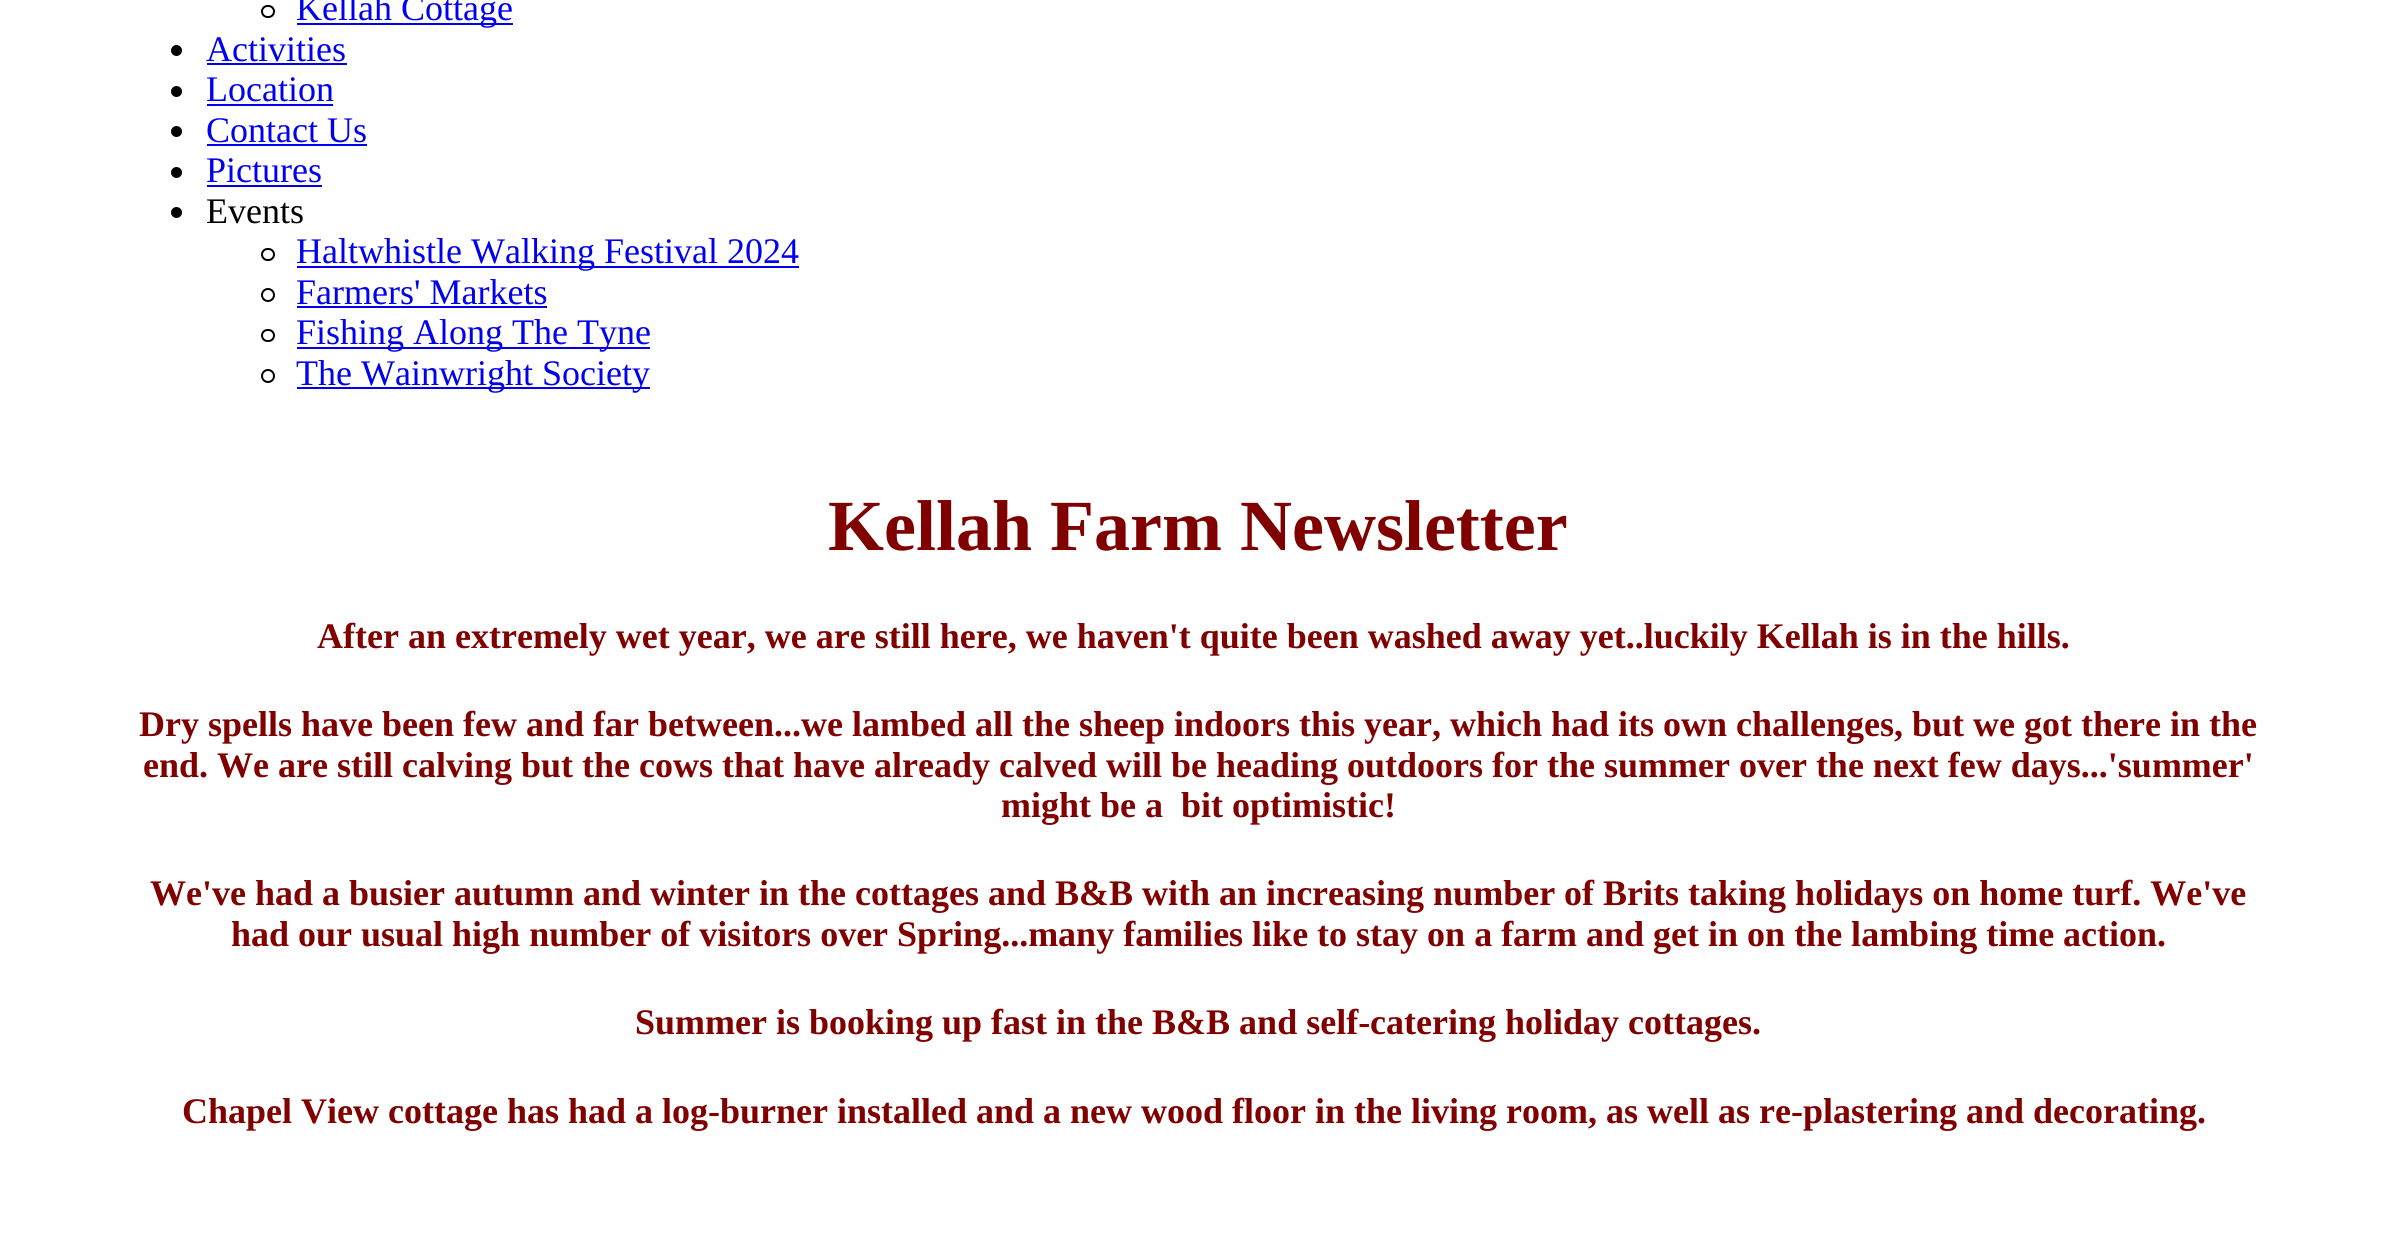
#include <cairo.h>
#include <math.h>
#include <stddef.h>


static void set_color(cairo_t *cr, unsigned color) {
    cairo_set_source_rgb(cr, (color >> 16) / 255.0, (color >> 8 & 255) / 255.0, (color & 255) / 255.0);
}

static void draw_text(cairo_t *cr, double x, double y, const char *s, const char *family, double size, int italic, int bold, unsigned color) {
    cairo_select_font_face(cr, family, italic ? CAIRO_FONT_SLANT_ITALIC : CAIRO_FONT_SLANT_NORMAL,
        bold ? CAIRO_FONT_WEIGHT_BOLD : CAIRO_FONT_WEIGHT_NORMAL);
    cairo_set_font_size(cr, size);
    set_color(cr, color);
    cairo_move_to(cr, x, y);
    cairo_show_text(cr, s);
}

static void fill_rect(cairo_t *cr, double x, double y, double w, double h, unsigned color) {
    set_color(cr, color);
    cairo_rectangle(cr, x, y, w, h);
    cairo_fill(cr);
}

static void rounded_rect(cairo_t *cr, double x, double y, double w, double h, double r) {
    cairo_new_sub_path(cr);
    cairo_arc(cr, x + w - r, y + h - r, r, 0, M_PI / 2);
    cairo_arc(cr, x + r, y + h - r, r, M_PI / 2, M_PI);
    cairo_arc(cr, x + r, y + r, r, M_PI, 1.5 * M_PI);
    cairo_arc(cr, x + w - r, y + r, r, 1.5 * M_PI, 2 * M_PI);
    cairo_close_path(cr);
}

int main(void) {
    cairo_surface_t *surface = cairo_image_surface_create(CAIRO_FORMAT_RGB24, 2395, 1250);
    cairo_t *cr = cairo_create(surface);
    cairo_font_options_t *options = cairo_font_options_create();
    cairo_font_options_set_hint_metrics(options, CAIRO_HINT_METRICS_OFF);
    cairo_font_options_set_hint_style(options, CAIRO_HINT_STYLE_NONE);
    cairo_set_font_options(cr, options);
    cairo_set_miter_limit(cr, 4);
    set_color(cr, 0xFFFFFF);
    cairo_paint(cr);
    rounded_rect(cr, 262, 6, 12, 11, 5.5);
    set_color(cr, 0x000000);
    cairo_stroke(cr);
    fill_rect(cr, 297, 23, 216, 2, 0x0000EE);
    draw_text(cr, 296, 20, "Kellah Cottage", "Liberation Serif", 36, 0, 0, 0x0000EE);
    set_color(cr, 0x000000);
    cairo_new_path(cr);
    cairo_arc(cr, 176.5, 50.5, 5.5, 0, 2 * M_PI);
    cairo_fill(cr);
    draw_text(cr, 206, 61, "Activities", "Liberation Serif", 36, 0, 0, 0x0000EE);
    fill_rect(cr, 207, 63, 140, 2, 0x0000EE);
    set_color(cr, 0x000000);
    cairo_new_path(cr);
    cairo_arc(cr, 176.5, 91.5, 5.5, 0, 2 * M_PI);
    cairo_fill(cr);
    draw_text(cr, 206, 101, "Location", "Liberation Serif", 36, 0, 0, 0x0000EE);
    fill_rect(cr, 207, 104, 126, 2, 0x0000EE);
    set_color(cr, 0x000000);
    cairo_new_path(cr);
    cairo_arc(cr, 176.5, 131.5, 5.5, 0, 2 * M_PI);
    cairo_fill(cr);
    draw_text(cr, 206, 142, "Contact Us", "Liberation Serif", 36, 0, 0, 0x0000EE);
    fill_rect(cr, 207, 144, 160, 2, 0x0000EE);
    set_color(cr, 0x000000);
    cairo_new_path(cr);
    cairo_arc(cr, 176.5, 172.5, 5.5, 0, 2 * M_PI);
    cairo_fill(cr);
    draw_text(cr, 206, 182, "Pictures", "Liberation Serif", 36, 0, 0, 0x0000EE);
    fill_rect(cr, 207, 185, 115, 2, 0x0000EE);
    set_color(cr, 0x000000);
    cairo_new_path(cr);
    cairo_arc(cr, 176.5, 212.5, 5.5, 0, 2 * M_PI);
    cairo_fill(cr);
    draw_text(cr, 206, 223, "Events", "Liberation Serif", 36, 0, 0, 0x000000);
    rounded_rect(cr, 262, 249, 12, 11, 5.5);
    cairo_stroke(cr);
    fill_rect(cr, 297, 266, 502, 2, 0x0000EE);
    draw_text(cr, 296, 263, "Haltwhistle Walking Festival 2024", "Liberation Serif", 36, 0, 0, 0x0000EE);
    cairo_new_path(cr);
    cairo_arc(cr, 268, 295, 6, 0, 2 * M_PI);
    set_color(cr, 0x000000);
    cairo_stroke(cr);
    draw_text(cr, 296, 304, "Farmers' Markets", "Liberation Serif", 36, 0, 0, 0x0000EE);
    fill_rect(cr, 297, 306, 250, 2, 0x0000EE);
    rounded_rect(cr, 262, 330, 12, 11, 5.5);
    set_color(cr, 0x000000);
    cairo_stroke(cr);
    fill_rect(cr, 297, 347, 353, 2, 0x0000EE);
    draw_text(cr, 296, 344, "Fishing Along The Tyne", "Liberation Serif", 36, 0, 0, 0x0000EE);
    cairo_new_path(cr);
    cairo_arc(cr, 268, 376, 6, 0, 2 * M_PI);
    set_color(cr, 0x000000);
    cairo_stroke(cr);
    fill_rect(cr, 297, 387, 353, 2, 0x0000EE);
    draw_text(cr, 296, 385, "The Wainwright Society", "Liberation Serif", 36, 0, 0, 0x0000EE);
    draw_text(cr, 828, 550, "Kellah Farm Newsletter", "Liberation Serif", 72, 0, 1, 0x800000);
    draw_text(cr, 317, 648, "After an extremely wet year, we are still here, we haven't quite been washed away yet..luckily Kellah is in the hills.", "Liberation Serif", 36, 0, 1, 0x800000);
    draw_text(cr, 139, 736, "Dry spells have been few and far between...we lambed all the sheep indoors this year, which had its own challenges, but we got there in the", "Liberation Serif", 36, 0, 1, 0x800000);
    draw_text(cr, 143, 777, "end. We are still calving but the cows that have already calved will be heading outdoors for the summer over the next few days...'summer'", "Liberation Serif", 36, 0, 1, 0x800000);
    draw_text(cr, 1001, 817, "might be a  bit optimistic!", "Liberation Serif", 36, 0, 1, 0x800000);
    draw_text(cr, 150, 905, "We've had a busier autumn and winter in the cottages and B&B with an increasing number of Brits taking holidays on home turf. We've", "Liberation Serif", 36, 0, 1, 0x800000);
    draw_text(cr, 231, 946, "had our usual high number of visitors over Spring...many families like to stay on a farm and get in on the lambing time action.", "Liberation Serif", 36, 0, 1, 0x800000);
    draw_text(cr, 635, 1034, "Summer is booking up fast in the B&B and self-catering holiday cottages.", "Liberation Serif", 36, 0, 1, 0x800000);
    draw_text(cr, 182, 1123, "Chapel View cottage has had a log-burner installed and a new wood floor in the living room, as well as re-plastering and decorating.", "Liberation Serif", 36, 0, 1, 0x800000);
    cairo_surface_write_to_png(surface, "output.png");
    cairo_font_options_destroy(options);
    cairo_destroy(cr);
    cairo_surface_destroy(surface);
    return 0;
}
